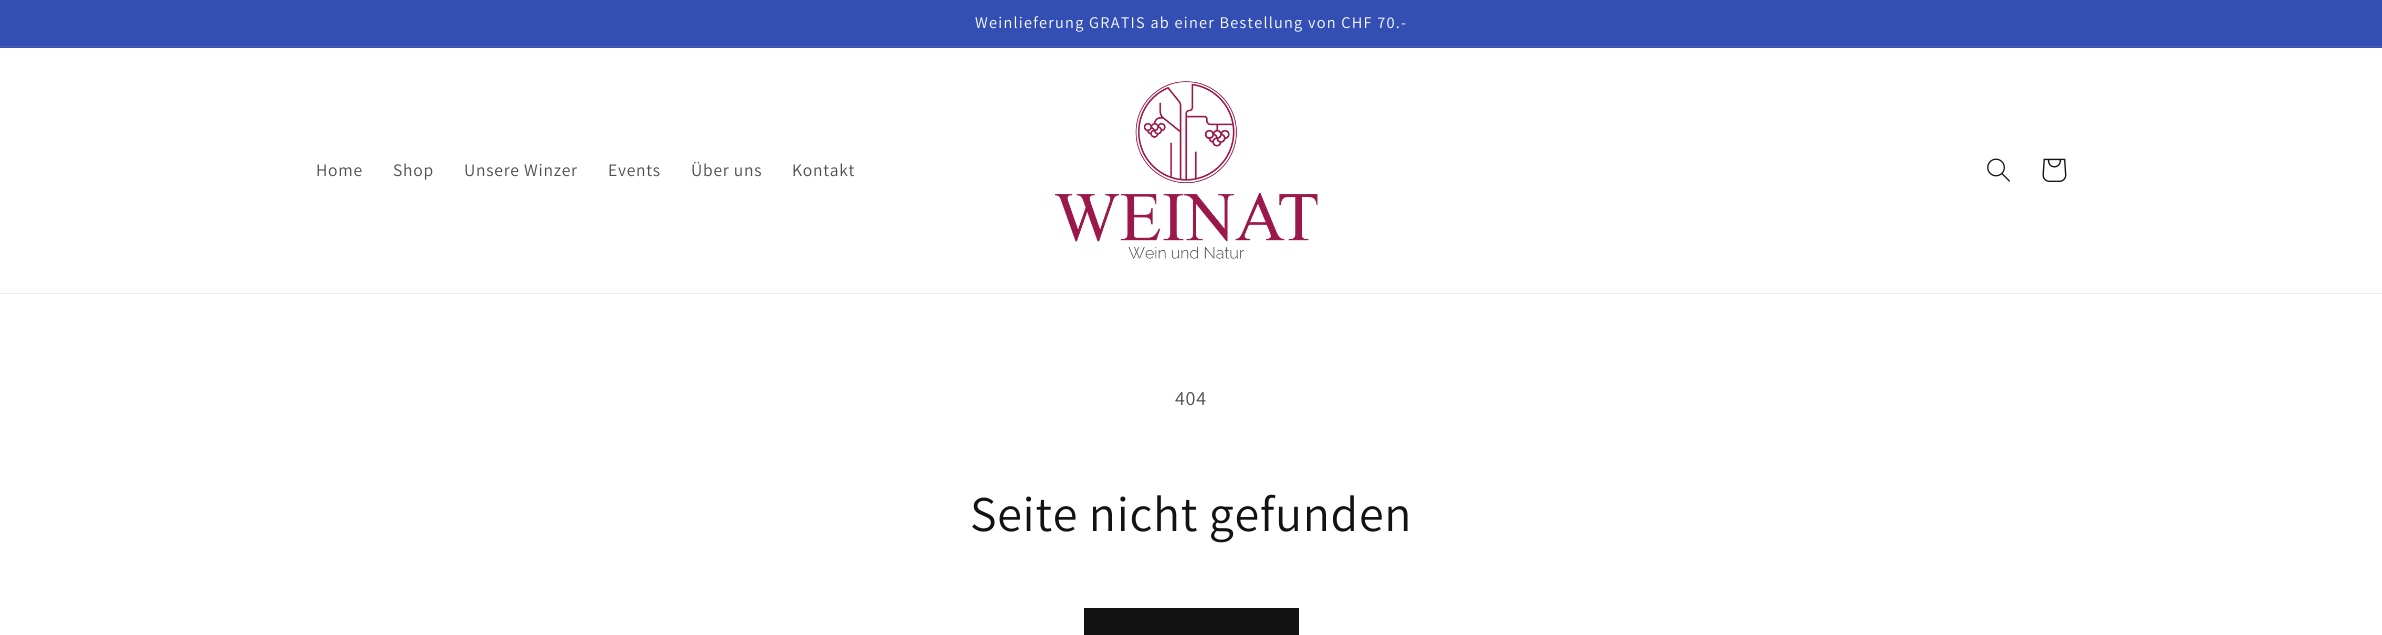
#include <cairo.h>
#include <math.h>
#include <stddef.h>


static void set_color(cairo_t *cr, unsigned color) {
    cairo_set_source_rgb(cr, (color >> 16) / 255.0, (color >> 8 & 255) / 255.0, (color & 255) / 255.0);
}

static void draw_spaced(cairo_t *cr, double x, double y, const char *s, double letter, double word) {
    cairo_move_to(cr, x, y);
    while (*s) {
        char ch[5] = {0};
        int n = 0;
        do ch[n++] = *s++; while ((*s & 0xC0) == 0x80);
        cairo_show_text(cr, ch);
        cairo_rel_move_to(cr, letter + word * (*ch == ' '), 0);
    }
}

static void fill_rect(cairo_t *cr, double x, double y, double w, double h, unsigned color) {
    set_color(cr, color);
    cairo_rectangle(cr, x, y, w, h);
    cairo_fill(cr);
}

static void draw_image(cairo_t *cr, const char *path, double x, double y, double w, double h) {
    cairo_surface_t *image = cairo_image_surface_create_from_png(path);
    cairo_save(cr);
    cairo_set_source_surface(cr, image, x, y);
    cairo_rectangle(cr, x, y, w, h);
    cairo_fill(cr);
    cairo_restore(cr);
    cairo_surface_destroy(image);
}

int main(void) {
    cairo_surface_t *surface = cairo_image_surface_create(CAIRO_FORMAT_RGB24, 2382, 635);
    cairo_t *cr = cairo_create(surface);
    cairo_font_options_t *options = cairo_font_options_create();
    cairo_font_options_set_hint_metrics(options, CAIRO_HINT_METRICS_OFF);
    cairo_font_options_set_hint_style(options, CAIRO_HINT_STYLE_NONE);
    cairo_set_font_options(cr, options);
    cairo_set_miter_limit(cr, 4);
    set_color(cr, 0xFFFFFF);
    cairo_paint(cr);
    fill_rect(cr, 0, 0, 2382, 48, 0x334FB4);
    fill_rect(cr, 0, 46, 2382, 1, 0x435DBA);
    cairo_select_font_face(cr, "Assistant", CAIRO_FONT_SLANT_NORMAL, CAIRO_FONT_WEIGHT_NORMAL);
    cairo_set_font_size(cr, 16.25);
    set_color(cr, 0xFFFFFF);
    draw_spaced(cr, 975, 28, "Weinlieferung GRATIS ab einer Bestellung von CHF 70.-", 1.25, 0);
    fill_rect(cr, 0, 293, 2382, 1, 0xECECEC);
    cairo_set_font_size(cr, 17.5);
    set_color(cr, 0x4D4D4D);
    draw_spaced(cr, 316, 176, "Home", 0.75, 0);
    draw_spaced(cr, 393, 176, "Shop", 0.75, 0);
    draw_spaced(cr, 464, 176, "Unsere Winzer", 0.75, 0);
    draw_spaced(cr, 608, 176, "Events", 0.75, 0);
    draw_spaced(cr, 691, 176, "Über uns", 0.75, 0);
    draw_spaced(cr, 792, 176, "Kontakt", 0.75, 0);
    draw_image(cr, "assets/img1.png", 1055, 81, 263, 178);
    draw_image(cr, "assets/img2.png", 1987, 158, 23, 24);
    draw_image(cr, "assets/img3.png", 2042, 158, 25, 24);
    cairo_set_font_size(cr, 20);
    draw_spaced(cr, 1175, 405, "404", 0.75, 0);
    cairo_set_font_size(cr, 50);
    set_color(cr, 0x121212);
    draw_spaced(cr, 970, 531, "Seite nicht gefunden", 0.75, 0);
    fill_rect(cr, 1084, 608, 215, 27, 0x121212);
    cairo_surface_write_to_png(surface, "output.png");
    cairo_font_options_destroy(options);
    cairo_destroy(cr);
    cairo_surface_destroy(surface);
    return 0;
}
